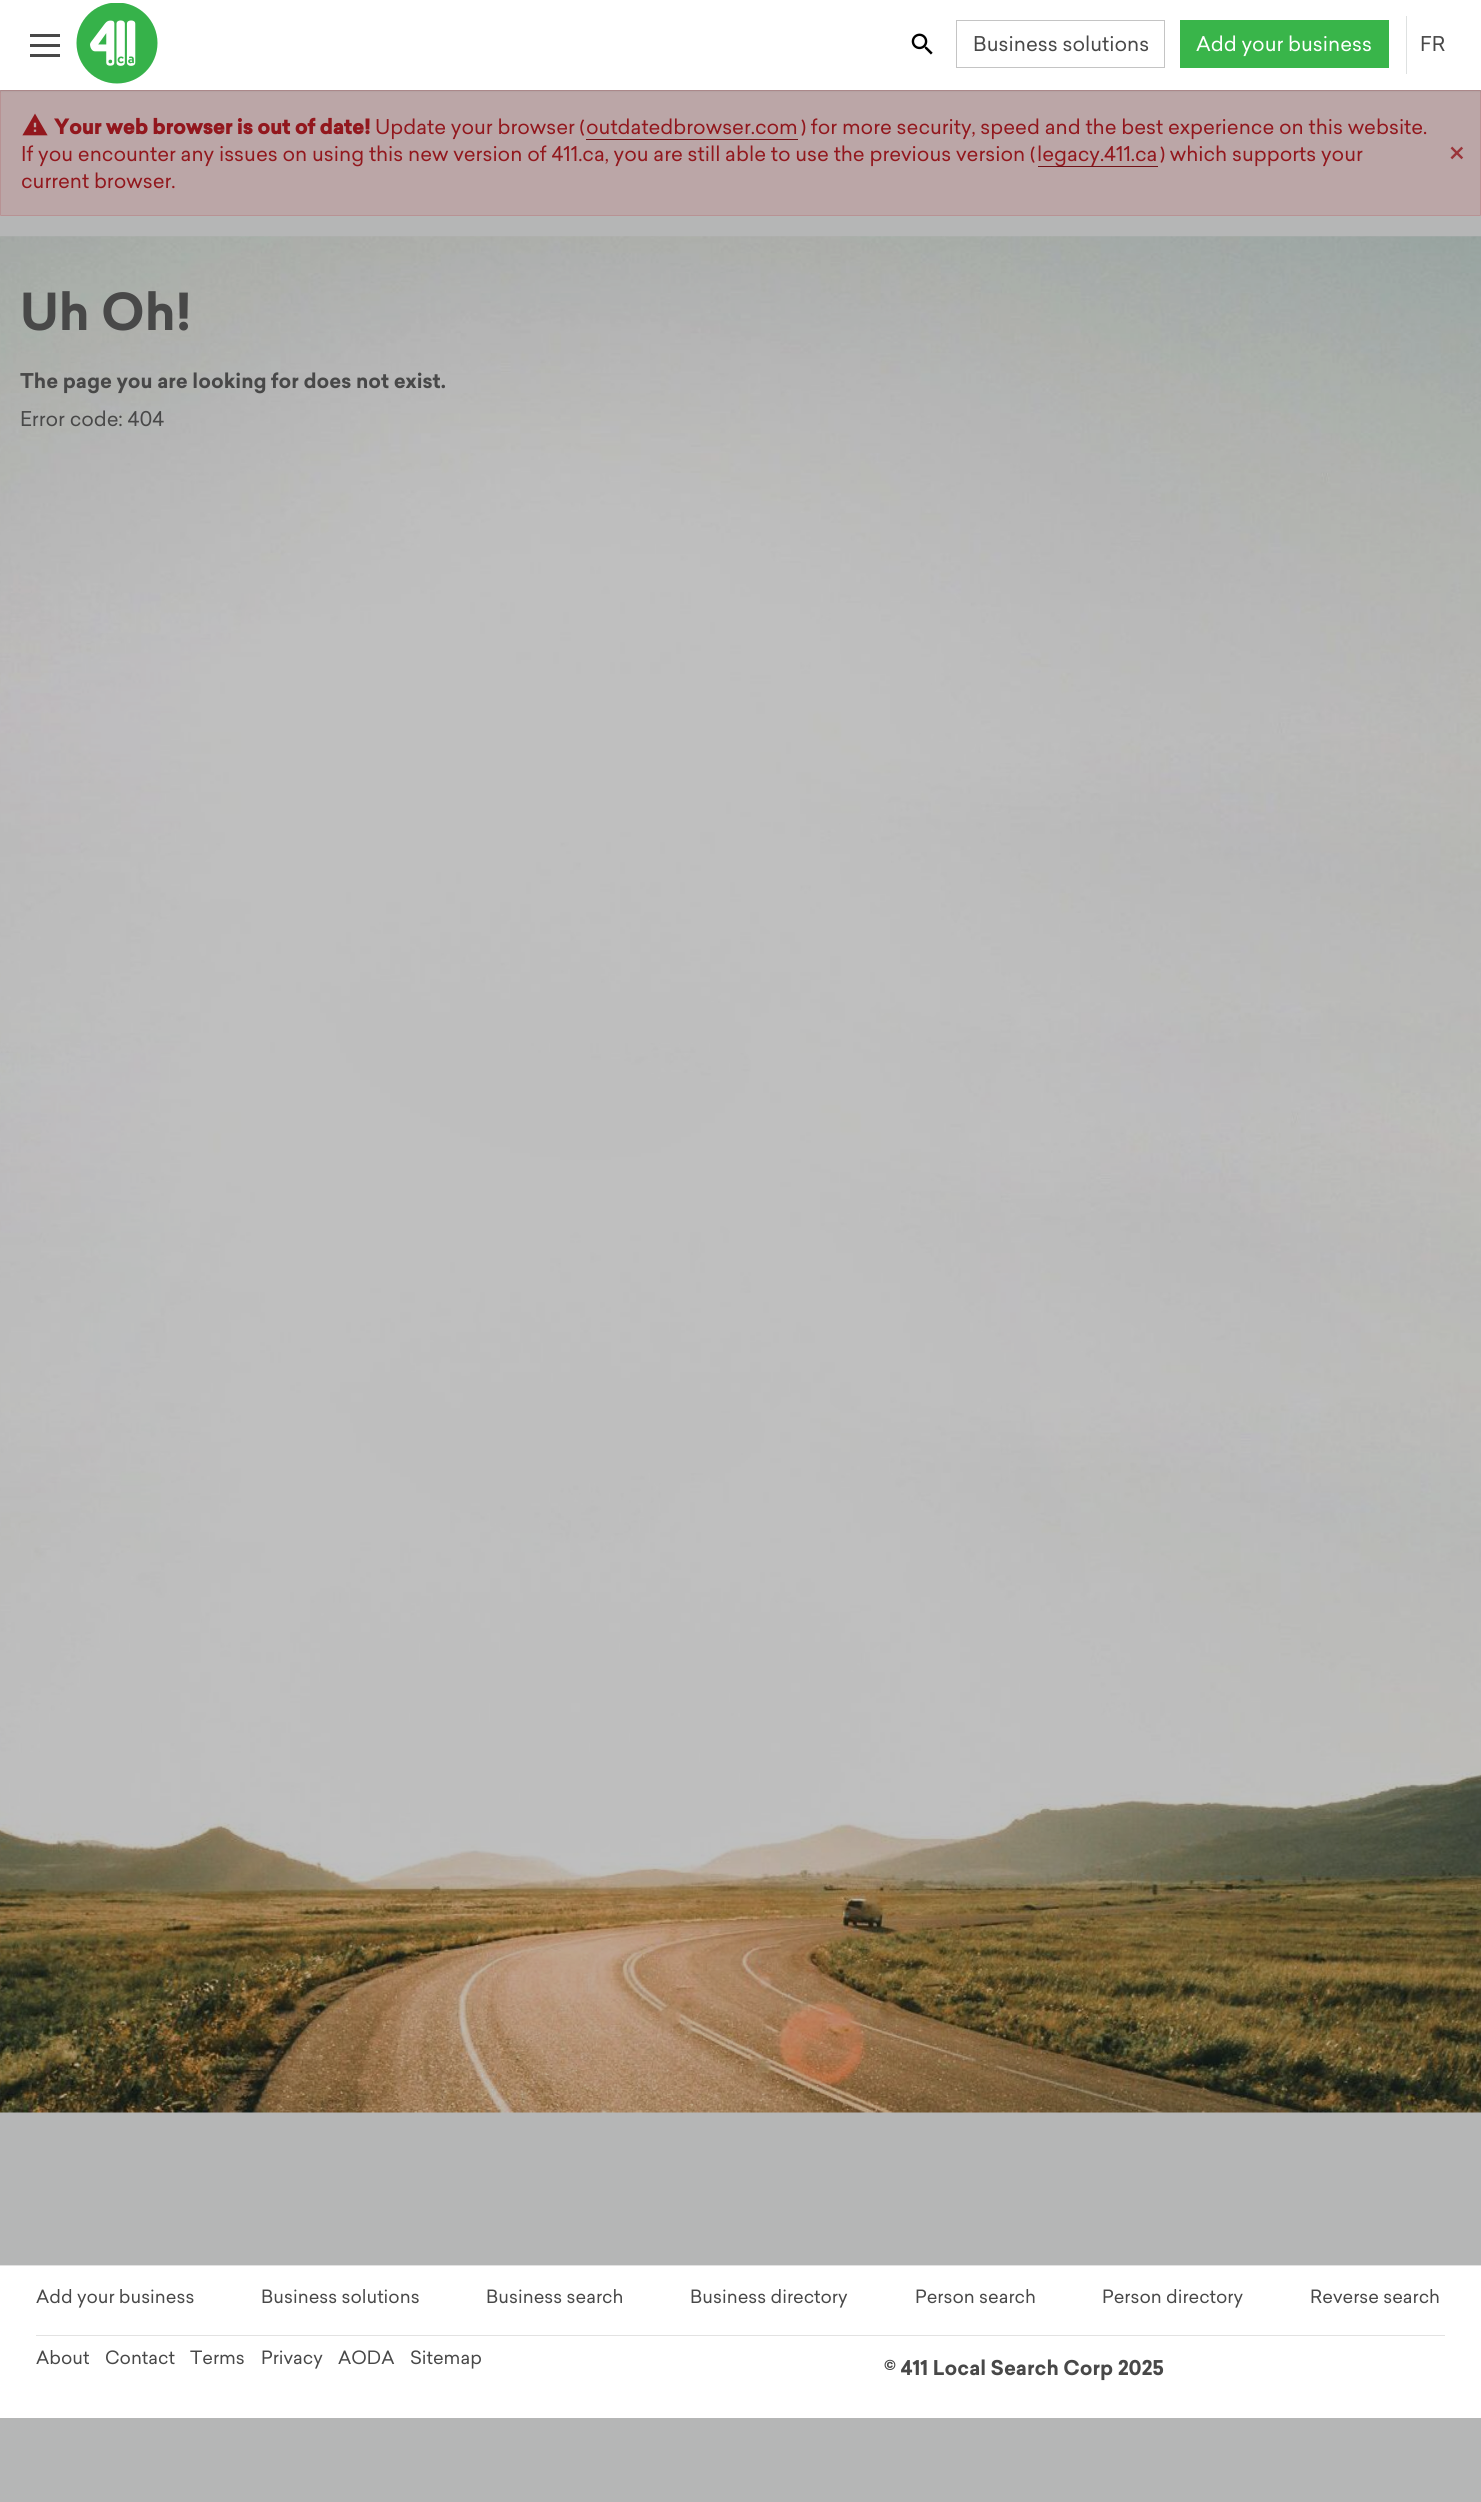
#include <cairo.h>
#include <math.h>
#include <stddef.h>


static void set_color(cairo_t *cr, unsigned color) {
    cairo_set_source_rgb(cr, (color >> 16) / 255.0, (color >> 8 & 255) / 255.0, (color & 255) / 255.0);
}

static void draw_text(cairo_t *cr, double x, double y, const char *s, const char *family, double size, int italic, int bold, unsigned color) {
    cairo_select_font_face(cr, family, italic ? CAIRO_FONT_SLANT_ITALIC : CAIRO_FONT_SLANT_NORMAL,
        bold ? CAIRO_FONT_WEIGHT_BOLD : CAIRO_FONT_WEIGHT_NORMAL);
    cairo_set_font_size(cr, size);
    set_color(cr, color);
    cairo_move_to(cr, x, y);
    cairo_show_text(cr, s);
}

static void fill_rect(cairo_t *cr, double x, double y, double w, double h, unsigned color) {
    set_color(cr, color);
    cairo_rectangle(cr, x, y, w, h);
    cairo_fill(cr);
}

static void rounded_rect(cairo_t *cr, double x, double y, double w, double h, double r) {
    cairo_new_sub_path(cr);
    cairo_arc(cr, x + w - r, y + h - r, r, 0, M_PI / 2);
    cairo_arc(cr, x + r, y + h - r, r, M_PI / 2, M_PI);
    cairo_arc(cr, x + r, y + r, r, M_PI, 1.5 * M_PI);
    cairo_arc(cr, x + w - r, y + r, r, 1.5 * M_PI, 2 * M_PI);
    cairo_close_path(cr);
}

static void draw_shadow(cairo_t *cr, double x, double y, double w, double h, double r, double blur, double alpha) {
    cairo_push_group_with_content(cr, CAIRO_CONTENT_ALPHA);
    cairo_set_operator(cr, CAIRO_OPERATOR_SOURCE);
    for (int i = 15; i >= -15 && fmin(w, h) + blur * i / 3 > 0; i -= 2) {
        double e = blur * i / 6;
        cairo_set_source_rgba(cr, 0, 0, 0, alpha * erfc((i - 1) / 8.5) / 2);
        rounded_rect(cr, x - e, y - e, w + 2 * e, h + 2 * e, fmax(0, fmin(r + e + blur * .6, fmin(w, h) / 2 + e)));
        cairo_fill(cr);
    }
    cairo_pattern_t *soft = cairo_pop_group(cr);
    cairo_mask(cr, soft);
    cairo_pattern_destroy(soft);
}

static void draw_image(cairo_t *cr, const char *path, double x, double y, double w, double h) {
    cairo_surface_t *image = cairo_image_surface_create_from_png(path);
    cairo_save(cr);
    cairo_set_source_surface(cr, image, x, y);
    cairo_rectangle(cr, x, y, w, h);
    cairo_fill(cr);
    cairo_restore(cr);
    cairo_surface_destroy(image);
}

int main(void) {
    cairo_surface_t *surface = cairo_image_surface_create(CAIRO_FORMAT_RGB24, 1481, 2502);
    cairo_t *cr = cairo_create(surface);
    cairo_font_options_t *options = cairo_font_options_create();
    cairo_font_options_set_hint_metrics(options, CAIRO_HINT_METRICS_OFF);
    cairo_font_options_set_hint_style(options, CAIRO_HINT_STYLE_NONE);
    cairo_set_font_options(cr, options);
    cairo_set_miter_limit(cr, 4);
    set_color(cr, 0xB5B6B6);
    cairo_paint(cr);
    set_color(cr, 0xBBA6A7);
    rounded_rect(cr, 0.5, 90.5, 1480, 125, 0.5);
    cairo_fill_preserve(cr);
    set_color(cr, 0xB89294);
    cairo_set_line_width(cr, 1);
    cairo_stroke(cr);
    set_color(cr, 0x000000);
    draw_shadow(cr, 0, 1, 1481, 90, 0, 1, 0.1);
    fill_rect(cr, 0, 0, 1481, 90, 0xFFFFFF);
    fill_rect(cr, 30, 34, 30, 3, 0x484848);
    fill_rect(cr, 30, 44, 30, 3, 0x484848);
    fill_rect(cr, 30, 54, 30, 3, 0x484848);
    draw_image(cr, "assets/img1.png", 76, 3, 82, 81);
    draw_image(cr, "assets/img2.png", 911, 33, 22, 22);
    cairo_rectangle(cr, 956.5, 20.5, 208, 47);
    set_color(cr, 0xC4C4C4);
    cairo_stroke(cr);
    draw_text(cr, 973, 51, "Business solutions", "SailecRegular", 20, 0, 0, 0x484848);
    fill_rect(cr, 1180, 20, 209, 48, 0x39B54A);
    draw_text(cr, 1196, 51, "Add your business", "SailecRegular", 20, 0, 0, 0xFFFFFF);
    fill_rect(cr, 1406, 16, 1, 58, 0xDEE1E1);
    draw_text(cr, 1420, 51, "FR", "SailecRegular", 20, 0, 0, 0x484848);
    draw_image(cr, "assets/img3.png", 22, 113, 26, 23);
    draw_text(cr, 54, 134, "Your web browser is out of date!", "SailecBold", 20, 0, 1, 0x92171D);
    draw_text(cr, 375, 134, "Update your browser (", "SailecRegular", 20, 0, 0, 0x92171D);
    fill_rect(cr, 586, 139, 212, 1, 0x711217);
    draw_text(cr, 586, 134, "outdatedbrowser.com", "SailecRegular", 20, 0, 0, 0x92171D);
    draw_text(cr, 801, 134, ") for more security, speed and the best experience on this website.", "SailecRegular", 20, 0, 0, 0x92171D);
    draw_text(cr, 21, 161, "If you encounter any issues on using this new version of 411.ca, you are still able to use the previous version (", "SailecRegular", 20, 0, 0, 0x92171D);
    fill_rect(cr, 1038, 166, 120, 1, 0x711217);
    draw_text(cr, 1037, 161, "legacy.411.ca", "SailecRegular", 20, 0, 0, 0x92171D);
    draw_text(cr, 1160, 161, ") which supports your", "SailecRegular", 20, 0, 0, 0x92171D);
    draw_text(cr, 21, 188, "current browser.", "SailecRegular", 20, 0, 0, 0x92171D);
    draw_text(cr, 1449, 164, "×", "SailecRegular", 30, 0, 0, 0x9A3439);
    draw_image(cr, "assets/img4.png", 0, 236, 1481, 1877);
    draw_text(cr, 20, 330, "Uh Oh!", "SailecBold", 50, 0, 0, 0x484848);
    draw_text(cr, 20, 388, "The page you are looking for does not exist.", "SailecBold", 20, 0, 0, 0x484848);
    draw_text(cr, 20, 426, "Error code: 404", "SailecRegular", 20, 0, 0, 0x484848);
    fill_rect(cr, 0, 2266, 1481, 152, 0xFFFFFF);
    fill_rect(cr, 0, 2265, 1481, 1, 0xE2E2E2);
    draw_text(cr, 36, 2303, "Add your business", "SailecRegular", 18, 0, 0, 0x484848);
    draw_text(cr, 261, 2303, "Business solutions", "SailecRegular", 18, 0, 0, 0x484848);
    draw_text(cr, 486, 2303, "Business search", "SailecRegular", 18, 0, 0, 0x484848);
    draw_text(cr, 690, 2303, "Business directory", "SailecRegular", 18, 0, 0, 0x484848);
    draw_text(cr, 915, 2303, "Person search", "SailecRegular", 18, 0, 0, 0x484848);
    draw_text(cr, 1102, 2303, "Person directory", "SailecRegular", 18, 0, 0, 0x484848);
    draw_text(cr, 1310, 2303, "Reverse search", "SailecRegular", 18, 0, 0, 0x484848);
    fill_rect(cr, 36, 2335, 1409, 1, 0xE2E2E2);
    draw_text(cr, 36, 2364, "About", "SailecRegular", 18, 0, 0, 0x484848);
    draw_text(cr, 105, 2364, "Contact", "SailecRegular", 18, 0, 0, 0x484848);
    draw_text(cr, 190, 2364, "Terms", "SailecRegular", 18, 0, 0, 0x484848);
    draw_text(cr, 261, 2364, "Privacy", "SailecRegular", 18, 0, 0, 0x484848);
    draw_text(cr, 338, 2364, "AODA", "SailecRegular", 18, 0, 0, 0x484848);
    draw_text(cr, 410, 2364, "Sitemap", "SailecRegular", 18, 0, 0, 0x484848);
    draw_text(cr, 884, 2375, "© 411 Local Search Corp 2025", "SailecBold", 20, 0, 0, 0x484848);
    cairo_surface_write_to_png(surface, "output.png");
    cairo_font_options_destroy(options);
    cairo_destroy(cr);
    cairo_surface_destroy(surface);
    return 0;
}
